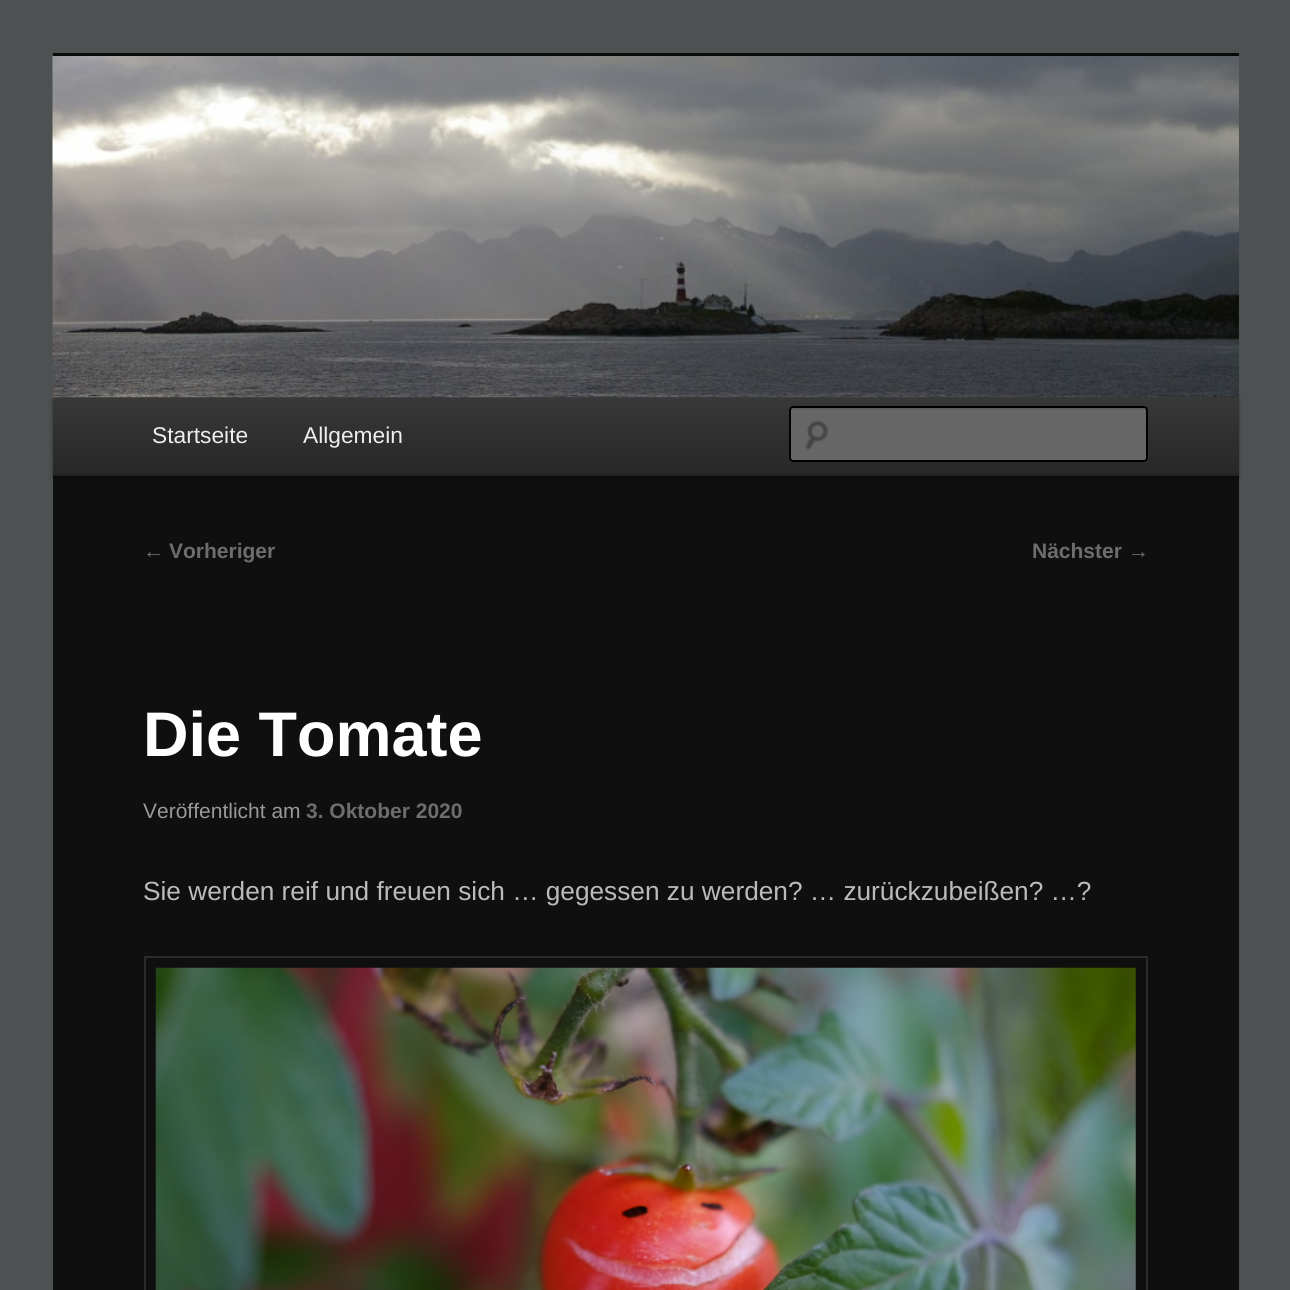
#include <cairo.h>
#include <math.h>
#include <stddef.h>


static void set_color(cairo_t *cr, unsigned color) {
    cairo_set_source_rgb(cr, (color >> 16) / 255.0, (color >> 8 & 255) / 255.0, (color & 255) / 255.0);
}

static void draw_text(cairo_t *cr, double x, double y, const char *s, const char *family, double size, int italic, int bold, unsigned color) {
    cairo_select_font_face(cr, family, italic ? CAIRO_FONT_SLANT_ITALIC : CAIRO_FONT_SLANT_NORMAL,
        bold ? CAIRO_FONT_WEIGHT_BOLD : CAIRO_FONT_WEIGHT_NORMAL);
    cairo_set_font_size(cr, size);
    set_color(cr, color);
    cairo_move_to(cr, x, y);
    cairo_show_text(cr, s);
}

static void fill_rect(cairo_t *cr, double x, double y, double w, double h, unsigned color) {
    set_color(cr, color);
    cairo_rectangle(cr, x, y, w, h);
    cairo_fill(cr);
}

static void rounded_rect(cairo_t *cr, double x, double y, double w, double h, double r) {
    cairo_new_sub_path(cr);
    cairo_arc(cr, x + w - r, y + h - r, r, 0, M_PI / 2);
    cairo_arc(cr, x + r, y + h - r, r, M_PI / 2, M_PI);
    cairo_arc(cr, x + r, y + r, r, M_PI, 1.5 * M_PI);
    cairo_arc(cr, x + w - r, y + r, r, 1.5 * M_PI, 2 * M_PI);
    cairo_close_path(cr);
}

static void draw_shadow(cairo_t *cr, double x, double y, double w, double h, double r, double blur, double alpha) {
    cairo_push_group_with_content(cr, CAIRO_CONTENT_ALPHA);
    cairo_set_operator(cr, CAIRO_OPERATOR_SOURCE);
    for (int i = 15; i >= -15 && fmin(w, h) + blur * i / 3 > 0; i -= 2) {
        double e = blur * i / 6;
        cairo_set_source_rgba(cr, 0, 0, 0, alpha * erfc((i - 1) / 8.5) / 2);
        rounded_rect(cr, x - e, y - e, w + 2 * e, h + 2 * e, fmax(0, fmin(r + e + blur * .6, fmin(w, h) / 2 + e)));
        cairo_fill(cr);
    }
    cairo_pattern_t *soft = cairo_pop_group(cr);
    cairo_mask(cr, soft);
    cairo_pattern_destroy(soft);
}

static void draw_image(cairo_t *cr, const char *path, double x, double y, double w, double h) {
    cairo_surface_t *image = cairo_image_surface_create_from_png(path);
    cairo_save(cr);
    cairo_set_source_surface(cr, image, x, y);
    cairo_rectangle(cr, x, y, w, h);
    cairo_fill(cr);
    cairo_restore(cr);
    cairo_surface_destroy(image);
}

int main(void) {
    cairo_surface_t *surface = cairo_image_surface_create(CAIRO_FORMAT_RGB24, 1290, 1290);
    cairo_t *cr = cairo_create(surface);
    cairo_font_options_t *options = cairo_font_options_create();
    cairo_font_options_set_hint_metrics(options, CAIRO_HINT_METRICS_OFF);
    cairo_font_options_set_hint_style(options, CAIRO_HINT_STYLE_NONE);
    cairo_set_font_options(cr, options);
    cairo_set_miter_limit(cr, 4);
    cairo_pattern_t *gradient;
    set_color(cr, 0x4D5151);
    cairo_paint(cr);
    fill_rect(cr, 53, 476, 1186, 814, 0x0F0F0F);
    fill_rect(cr, 53, 53, 1186, 3, 0x0A0A0A);
    set_color(cr, 0x000000);
    draw_shadow(cr, 53, 399, 1186, 79, 0, 2, 0.4);
    gradient = cairo_pattern_create_linear(646, 397, 646, 474);
    cairo_pattern_add_color_stop_rgba(gradient, 0, 0.22, 0.22, 0.22, 1);
    cairo_pattern_add_color_stop_rgba(gradient, 1, 0.153, 0.153, 0.153, 1);
    cairo_set_source(cr, gradient);
    cairo_pattern_destroy(gradient);
    cairo_rectangle(cr, 53, 397, 1186, 77);
    cairo_fill(cr);
    draw_image(cr, "assets/img1.png", 52, 56, 1187, 342);
    fill_rect(cr, 53, 474, 1186, 2, 0x222222);
    draw_text(cr, 152, 443, "Startseite", "Liberation Sans", 22.75, 0, 0, 0xEEEEEE);
    draw_text(cr, 303, 443, "Allgemein", "Liberation Sans", 22.75, 0, 0, 0xEEEEEE);
    set_color(cr, 0x666666);
    rounded_rect(cr, 789, 406, 359, 56, 4);
    cairo_fill(cr);
    draw_image(cr, "assets/img2.png", 805, 420, 23, 30);
    set_color(cr, 0x5C5C5C);
    cairo_new_path(cr);
    cairo_move_to(cr, 793, 410);
    cairo_line_to(cr, 1144, 410);
    cairo_curve_to(cr, 1145, 410, 1146, 410, 1146, 411);
    cairo_curve_to(cr, 1146, 410, 1146, 408, 1144, 408);
    cairo_line_to(cr, 793, 408);
    cairo_curve_to(cr, 791, 408, 791, 410, 791, 411);
    cairo_curve_to(cr, 791, 410, 792, 410, 793, 410);
    cairo_close_path(cr);
    cairo_fill(cr);
    rounded_rect(cr, 790, 407, 357, 54, 3);
    set_color(cr, 0x000000);
    cairo_stroke(cr);
    draw_text(cr, 143, 558, "←", "Liberation Sans", 21, 0, 0, 0x6D6D6D);
    draw_text(cr, 169, 558, "Vorheriger", "Liberation Sans", 21, 0, 1, 0x6D6D6D);
    draw_text(cr, 1032, 558, "Nächster", "Liberation Sans", 21, 0, 1, 0x6D6D6D);
    draw_text(cr, 1128, 558, "→", "Liberation Sans", 21, 0, 0, 0x6D6D6D);
    draw_text(cr, 143, 756, "Die Tomate", "Liberation Sans", 63, 0, 1, 0xFFFFFF);
    draw_text(cr, 143, 818, "Veröffentlicht am", "Liberation Sans", 21, 0, 0, 0x999999);
    draw_text(cr, 306, 818, "3. Oktober 2020", "Liberation Sans", 21, 0, 1, 0x6D6D6D);
    draw_text(cr, 143, 900, "Sie werden reif und freuen sich … gegessen zu werden? … zurückzubeißen? …?", "Liberation Sans", 26.25, 0, 0, 0xBBBBBB);
    cairo_rectangle(cr, 145, 957, 1002, 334);
    set_color(cr, 0x2C2C2C);
    cairo_stroke(cr);
    draw_image(cr, "assets/img3.png", 155, 967, 981, 323);
    cairo_surface_write_to_png(surface, "output.png");
    cairo_font_options_destroy(options);
    cairo_destroy(cr);
    cairo_surface_destroy(surface);
    return 0;
}
